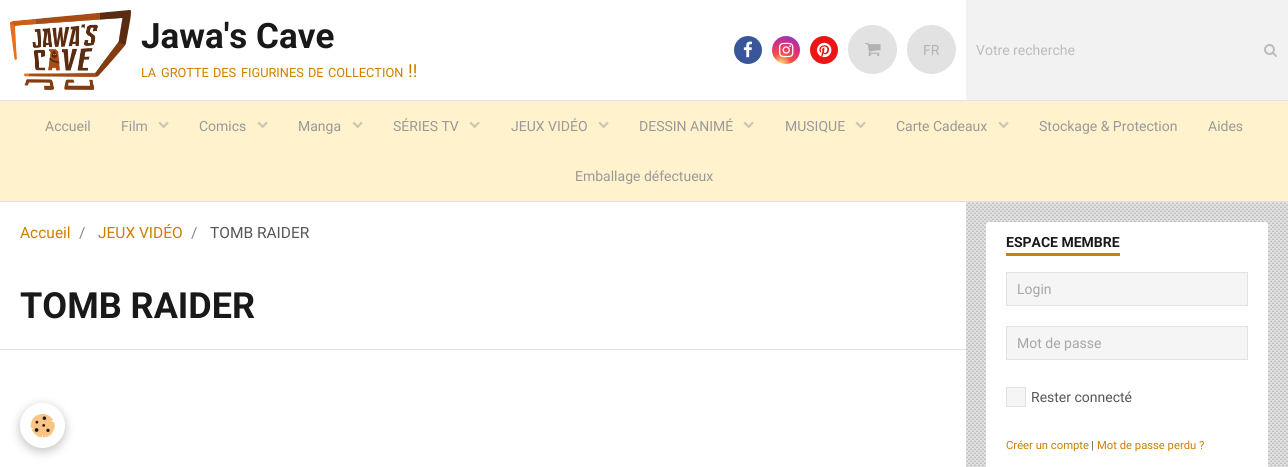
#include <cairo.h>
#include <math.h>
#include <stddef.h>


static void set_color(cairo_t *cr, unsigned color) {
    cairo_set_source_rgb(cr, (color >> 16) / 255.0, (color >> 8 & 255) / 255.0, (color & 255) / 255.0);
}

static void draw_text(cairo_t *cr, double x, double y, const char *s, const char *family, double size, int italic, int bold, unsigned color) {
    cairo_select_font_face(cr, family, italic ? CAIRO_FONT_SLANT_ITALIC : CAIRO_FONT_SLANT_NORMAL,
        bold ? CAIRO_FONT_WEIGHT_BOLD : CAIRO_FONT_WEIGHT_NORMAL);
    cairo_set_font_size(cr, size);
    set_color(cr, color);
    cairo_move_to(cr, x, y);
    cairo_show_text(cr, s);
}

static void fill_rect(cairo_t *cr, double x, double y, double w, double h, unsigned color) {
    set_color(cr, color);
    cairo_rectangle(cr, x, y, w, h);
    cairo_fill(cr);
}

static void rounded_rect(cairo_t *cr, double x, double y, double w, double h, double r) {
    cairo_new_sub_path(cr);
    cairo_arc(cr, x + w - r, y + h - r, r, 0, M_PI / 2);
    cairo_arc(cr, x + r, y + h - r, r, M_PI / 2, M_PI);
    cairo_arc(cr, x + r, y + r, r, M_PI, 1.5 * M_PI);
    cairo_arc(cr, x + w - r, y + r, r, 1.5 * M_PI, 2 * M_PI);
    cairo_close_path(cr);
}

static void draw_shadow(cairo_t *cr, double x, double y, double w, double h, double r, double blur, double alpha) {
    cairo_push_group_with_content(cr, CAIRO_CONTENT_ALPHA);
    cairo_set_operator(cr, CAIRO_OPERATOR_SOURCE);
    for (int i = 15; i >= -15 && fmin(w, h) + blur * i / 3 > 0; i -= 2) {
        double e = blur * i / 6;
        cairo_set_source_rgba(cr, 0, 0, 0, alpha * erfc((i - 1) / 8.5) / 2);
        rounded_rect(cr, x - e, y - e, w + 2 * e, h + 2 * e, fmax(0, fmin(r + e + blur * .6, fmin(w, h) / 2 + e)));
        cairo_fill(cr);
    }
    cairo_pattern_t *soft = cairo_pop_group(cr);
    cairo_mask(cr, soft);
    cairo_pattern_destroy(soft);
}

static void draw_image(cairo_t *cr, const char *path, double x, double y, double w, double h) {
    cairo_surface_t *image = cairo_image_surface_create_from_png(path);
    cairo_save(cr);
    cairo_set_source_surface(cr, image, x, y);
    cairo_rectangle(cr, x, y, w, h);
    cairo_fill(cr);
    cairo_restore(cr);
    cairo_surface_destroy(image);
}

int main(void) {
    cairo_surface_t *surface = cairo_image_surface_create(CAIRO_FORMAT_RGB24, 1288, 467);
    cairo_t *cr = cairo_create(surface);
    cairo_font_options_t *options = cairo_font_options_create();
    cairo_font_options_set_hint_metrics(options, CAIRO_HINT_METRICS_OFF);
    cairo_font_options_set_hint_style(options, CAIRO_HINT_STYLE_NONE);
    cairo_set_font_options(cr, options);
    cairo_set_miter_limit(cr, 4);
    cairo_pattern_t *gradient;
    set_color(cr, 0xFFFFFF);
    cairo_paint(cr);
    fill_rect(cr, 0, 100, 1288, 1, 0xE2E2E2);
    draw_image(cr, "assets/img1.png", 10, 10, 121, 80);
    draw_text(cr, 141, 48, "Jawa's Cave", "Roboto", 35, 0, 1, 0x191919);
    draw_text(cr, 141, 77, "LA", "Roboto", 12.75, 0, 0, 0xCE7E00);
    draw_text(cr, 161, 77, "GROTTE", "Roboto", 12.75, 0, 0, 0xCE7E00);
    draw_text(cr, 213, 77, "DES", "Roboto", 12.75, 0, 0, 0xCE7E00);
    draw_text(cr, 241, 77, "FIGURINES", "Roboto", 12.75, 0, 0, 0xCE7E00);
    draw_text(cr, 308, 77, "DE", "Roboto", 12.75, 0, 0, 0xCE7E00);
    draw_text(cr, 328, 77, "COLLECTION", "Roboto", 12.75, 0, 0, 0xCE7E00);
    draw_text(cr, 408, 77, "!!", "Roboto", 18, 0, 0, 0xCE7E00);
    set_color(cr, 0x385699);
    cairo_new_path(cr);
    cairo_arc(cr, 748, 50, 14, 0, 2 * M_PI);
    cairo_fill(cr);
    draw_image(cr, "assets/img2.png", 743, 41, 9, 17);
    gradient = cairo_pattern_create_radial(781, 64, 0, 781, 64, 34);
    cairo_pattern_add_color_stop_rgba(gradient, 0.04, 0.996, 0.827, 0.451, 1);
    cairo_pattern_add_color_stop_rgba(gradient, 0.3, 0.945, 0.322, 0.271, 1);
    cairo_pattern_add_color_stop_rgba(gradient, 0.62, 0.851, 0.18, 0.498, 1);
    cairo_pattern_add_color_stop_rgba(gradient, 0.85, 0.608, 0.212, 0.718, 1);
    cairo_pattern_add_color_stop_rgba(gradient, 1, 0.318, 0.369, 0.812, 1);
    cairo_set_source(cr, gradient);
    cairo_pattern_destroy(gradient);
    cairo_arc(cr, 786, 50, 14, 0, 2 * M_PI);
    cairo_fill(cr);
    draw_image(cr, "assets/img3.png", 779, 42, 15, 16);
    set_color(cr, 0xEA1514);
    cairo_arc(cr, 824, 50, 14, 0, 2 * M_PI);
    cairo_fill(cr);
    draw_image(cr, "assets/img4.png", 817, 42, 15, 16);
    set_color(cr, 0xE2E2E2);
    cairo_arc(cr, 872.5, 49.5, 24.5, 0, 2 * M_PI);
    cairo_fill(cr);
    draw_image(cr, "assets/img5.png", 865, 43, 16, 14);
    cairo_arc(cr, 931.5, 49.5, 24.5, 0, 2 * M_PI);
    cairo_fill(cr);
    draw_text(cr, 923, 55, "FR", "Roboto", 14, 0, 0, 0xB2B2B2);
    fill_rect(cr, 966, 0, 322, 100, 0xF2F2F2);
    draw_text(cr, 976, 55, "Votre recherche", "Roboto", 14, 0, 0, 0xBCBCBC);
    draw_image(cr, "assets/img6.png", 1264, 44, 13, 13);
    fill_rect(cr, 0, 101, 1288, 100, 0xFFF2CC);
    fill_rect(cr, 0, 201, 1288, 1, 0xE2E2E2);
    draw_text(cr, 45, 131, "Accueil", "Roboto", 14, 0, 0, 0x999999);
    draw_text(cr, 121, 131, "Film", "Roboto", 14, 0, 0, 0x999999);
    draw_image(cr, "assets/img7.png", 158, 121, 11, 8);
    draw_text(cr, 199, 131, "Comics", "Roboto", 14, 0, 0, 0x999999);
    draw_image(cr, "assets/img7.png", 257, 121, 11, 8);
    draw_text(cr, 298, 131, "Manga", "Roboto", 14, 0, 0, 0x999999);
    draw_image(cr, "assets/img7.png", 352, 121, 11, 8);
    draw_text(cr, 393, 131, "SÉRIES TV", "Roboto", 14, 0, 0, 0x999999);
    draw_image(cr, "assets/img7.png", 469, 121, 11, 8);
    draw_text(cr, 511, 131, "JEUX VIDÉO", "Roboto", 14, 0, 0, 0x999999);
    draw_image(cr, "assets/img7.png", 598, 121, 11, 8);
    draw_text(cr, 639, 131, "DESSIN ANIMÉ", "Roboto", 14, 0, 0, 0x999999);
    draw_image(cr, "assets/img7.png", 743, 121, 11, 8);
    draw_text(cr, 785, 131, "MUSIQUE", "Roboto", 14, 0, 0, 0x999999);
    draw_image(cr, "assets/img7.png", 855, 121, 11, 8);
    draw_text(cr, 896, 131, "Carte Cadeaux", "Roboto", 14, 0, 0, 0x999999);
    draw_image(cr, "assets/img7.png", 998, 121, 11, 8);
    draw_text(cr, 1039, 131, "Stockage & Protection", "Roboto", 14, 0, 0, 0x999999);
    draw_text(cr, 1208, 131, "Aides", "Roboto", 14, 0, 0, 0x999999);
    draw_text(cr, 575, 181, "Emballage défectueux", "Roboto", 14, 0, 0, 0x999999);
    draw_text(cr, 20, 238, "Accueil", "Roboto", 15.5, 0, 0, 0xCE7E00);
    draw_text(cr, 79, 238, "/", "Roboto", 15.5, 0, 0, 0x898989);
    draw_text(cr, 98, 238, "JEUX VIDÉO", "Roboto", 15.5, 0, 0, 0xCE7E00);
    draw_text(cr, 191, 238, "/", "Roboto", 15.5, 0, 0, 0x898989);
    draw_text(cr, 210, 238, "TOMB RAIDER", "Roboto", 15.5, 0, 0, 0x575757);
    fill_rect(cr, 0, 349, 966, 1, 0xE2E2E2);
    draw_text(cr, 20, 318, "TOMB RAIDER", "Roboto", 36, 0, 1, 0x191919);
    fill_rect(cr, 966, 202, 322, 265, 0xE2E2E2);
    draw_image(cr, "assets/img8.png", 966, 202, 322, 265);
    set_color(cr, 0xFFFFFF);
    rounded_rect(cr, 986, 222, 282, 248, 3);
    cairo_fill(cr);
    draw_text(cr, 1006, 247, "ESPACE MEMBRE", "Roboto", 14, 0, 1, 0x191919);
    fill_rect(cr, 1006, 253, 114, 3, 0xCE7E00);
    set_color(cr, 0xF5F5F5);
    cairo_rectangle(cr, 1006.5, 272.5, 241, 33);
    cairo_fill_preserve(cr);
    set_color(cr, 0xE2E2E2);
    cairo_set_line_width(cr, 1);
    cairo_stroke(cr);
    draw_text(cr, 1017, 294, "Login", "Roboto", 14, 0, 0, 0xA6A6A6);
    set_color(cr, 0xF5F5F5);
    cairo_rectangle(cr, 1006.5, 326.5, 241, 33);
    cairo_fill_preserve(cr);
    set_color(cr, 0xE2E2E2);
    cairo_stroke(cr);
    draw_text(cr, 1017, 348, "Mot de passe", "Roboto", 14, 0, 0, 0xA6A6A6);
    set_color(cr, 0xF5F5F5);
    cairo_rectangle(cr, 1006.5, 387.5, 19, 19);
    cairo_fill_preserve(cr);
    set_color(cr, 0xE2E2E2);
    cairo_stroke(cr);
    draw_text(cr, 1031, 402, "Rester connecté", "Roboto", 14, 0, 0, 0x575757);
    draw_text(cr, 1006, 449, "Créer un compte", "Roboto", 11.25, 0, 0, 0xCE7E00);
    draw_text(cr, 1091, 449, "|", "Roboto", 11.25, 0, 0, 0x575757);
    draw_text(cr, 1097, 449, "Mot de passe perdu ?", "Roboto", 11.25, 0, 0, 0xCE7E00);
    set_color(cr, 0x000000);
    draw_shadow(cr, 20, 406, 45, 45, 22.5, 5, 0.24);
    set_color(cr, 0xFFFFFF);
    cairo_arc(cr, 42.5, 425.5, 22.5, 0, 2 * M_PI);
    cairo_fill(cr);
    draw_image(cr, "assets/img9.png", 30, 413, 25, 25);
    cairo_surface_write_to_png(surface, "output.png");
    cairo_font_options_destroy(options);
    cairo_destroy(cr);
    cairo_surface_destroy(surface);
    return 0;
}
